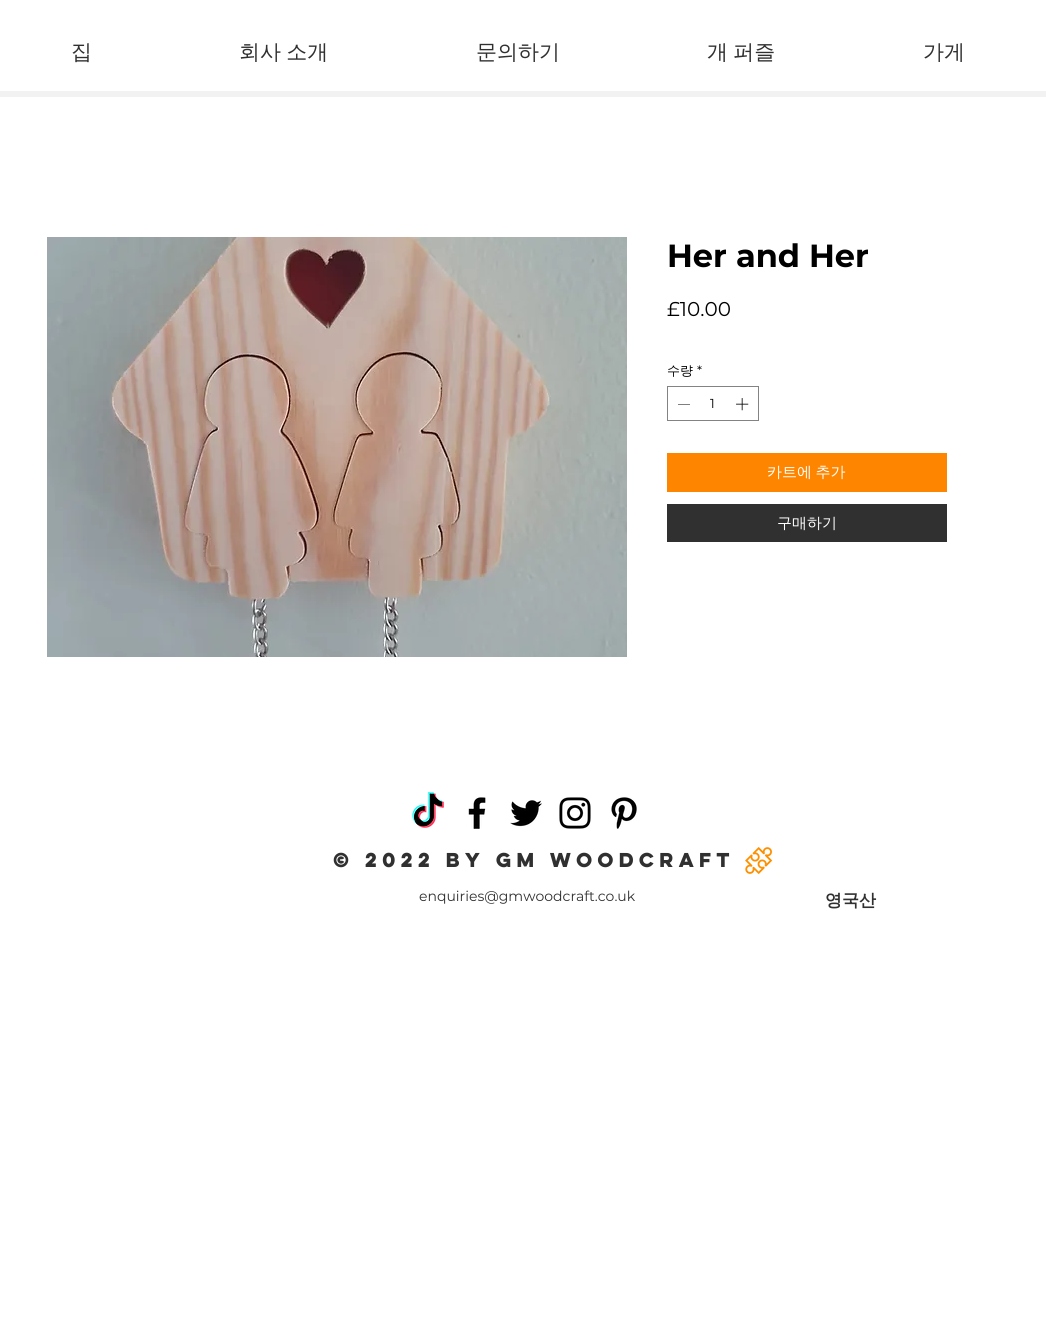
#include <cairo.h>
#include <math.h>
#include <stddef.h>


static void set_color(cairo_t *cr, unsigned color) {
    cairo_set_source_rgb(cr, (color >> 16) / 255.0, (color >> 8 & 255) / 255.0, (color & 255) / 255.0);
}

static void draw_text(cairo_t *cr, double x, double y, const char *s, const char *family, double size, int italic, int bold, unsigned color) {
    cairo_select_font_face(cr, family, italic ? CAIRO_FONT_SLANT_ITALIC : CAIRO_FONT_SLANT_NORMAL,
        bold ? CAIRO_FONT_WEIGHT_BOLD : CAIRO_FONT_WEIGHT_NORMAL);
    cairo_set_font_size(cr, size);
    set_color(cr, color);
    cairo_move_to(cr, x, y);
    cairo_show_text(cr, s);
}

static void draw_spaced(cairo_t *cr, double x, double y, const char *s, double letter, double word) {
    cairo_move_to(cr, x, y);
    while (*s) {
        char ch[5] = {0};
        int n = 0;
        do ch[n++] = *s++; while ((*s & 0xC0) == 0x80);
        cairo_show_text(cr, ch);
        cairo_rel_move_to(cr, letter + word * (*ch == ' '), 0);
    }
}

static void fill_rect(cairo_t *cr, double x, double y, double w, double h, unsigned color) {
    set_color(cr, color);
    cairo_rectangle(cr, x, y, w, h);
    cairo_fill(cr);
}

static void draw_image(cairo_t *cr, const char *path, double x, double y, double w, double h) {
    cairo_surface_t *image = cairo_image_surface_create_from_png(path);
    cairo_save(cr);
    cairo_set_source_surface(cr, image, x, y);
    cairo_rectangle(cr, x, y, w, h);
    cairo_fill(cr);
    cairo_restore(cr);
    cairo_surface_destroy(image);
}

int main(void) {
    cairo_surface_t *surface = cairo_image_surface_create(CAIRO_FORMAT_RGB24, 1046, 1337);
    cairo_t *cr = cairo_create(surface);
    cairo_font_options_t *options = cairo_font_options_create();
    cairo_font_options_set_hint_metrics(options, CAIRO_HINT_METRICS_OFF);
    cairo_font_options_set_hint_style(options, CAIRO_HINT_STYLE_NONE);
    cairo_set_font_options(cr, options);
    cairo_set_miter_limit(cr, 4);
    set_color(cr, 0xFFFFFF);
    cairo_paint(cr);
    draw_text(cr, 71, 59, "집", "WenQuanYi Zen Hei Medium", 21, 0, 0, 0x303030);
    draw_spaced(cr, 239, 59, "회사 소개", 0, -1);
    draw_text(cr, 476, 59, "문의하기", "WenQuanYi Zen Hei Medium", 21, 0, 0, 0x303030);
    draw_spaced(cr, 707, 59, "개 퍼즐", 0, -1);
    draw_text(cr, 923, 59, "가게", "WenQuanYi Zen Hei Medium", 21, 0, 0, 0x303030);
    fill_rect(cr, 0, 91, 1046, 6, 0xF2F2F2);
    draw_image(cr, "assets/img1.png", 47, 237, 580, 420);
    draw_text(cr, 667, 267, "Her and Her", "Montserrat", 32, 0, 1, 0x000000);
    draw_text(cr, 667, 316, "£10.00", "Montserrat", 20, 0, 0, 0x000000);
    draw_text(cr, 667, 375, "수량", "WenQuanYi Zen Hei Medium", 13, 0, 0, 0x000000);
    draw_text(cr, 697, 375, "*", "Montserrat", 13, 0, 0, 0x000000);
    cairo_rectangle(cr, 667.5, 386.5, 91, 34);
    set_color(cr, 0x838383);
    cairo_set_line_width(cr, 1);
    cairo_stroke(cr);
    set_color(cr, 0x000000);
    cairo_set_fill_rule(cr, CAIRO_FILL_RULE_EVEN_ODD);
    cairo_new_path(cr);
    cairo_move_to(cr, 690, 404);
    cairo_line_to(cr, 690, 404.5);
    cairo_line_to(cr, 678, 404.5);
    cairo_line_to(cr, 678, 404);
    cairo_close_path(cr);
    cairo_fill(cr);
    draw_text(cr, 710, 408, "1", "Montserrat", 13, 0, 0, 0x000000);
    draw_image(cr, "assets/img2.png", 736, 398, 13, 13);
    fill_rect(cr, 667, 453, 280, 39, 0xFE8500);
    cairo_select_font_face(cr, "WenQuanYi Zen Hei Medium", CAIRO_FONT_SLANT_NORMAL, CAIRO_FONT_WEIGHT_NORMAL);
    cairo_set_font_size(cr, 15);
    set_color(cr, 0xFFFFFF);
    draw_spaced(cr, 767, 477, "카트에 추가", 0, -1);
    fill_rect(cr, 667, 504, 280, 38, 0x303030);
    draw_text(cr, 777, 528, "구매하기", "WenQuanYi Zen Hei Medium", 15, 0, 0, 0xFFFFFF);
    draw_image(cr, "assets/img3.png", 412, 792, 32, 36);
    draw_image(cr, "assets/img4.png", 468, 797, 18, 32);
    draw_image(cr, "assets/img5.png", 510, 800, 32, 27);
    draw_image(cr, "assets/img6.png", 559, 797, 32, 32);
    draw_image(cr, "assets/img7.png", 611, 797, 26, 32);
    cairo_select_font_face(cr, "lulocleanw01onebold", CAIRO_FONT_SLANT_NORMAL, CAIRO_FONT_WEIGHT_BOLD);
    cairo_set_font_size(cr, 18);
    set_color(cr, 0x303030);
    draw_spaced(cr, 333, 867, "© 2022 by GM WoodCraft", 1.4, 0);
    draw_image(cr, "assets/img8.png", 745, 847, 28, 27);
    draw_text(cr, 419, 901, "enquiries@gmwoodcraft.co.uk", "Montserrat", 14, 0, 0, 0x303030);
    draw_text(cr, 825, 906, "영국산", "WenQuanYi Zen Hei", 17, 0, 1, 0x303030);
    cairo_surface_write_to_png(surface, "output.png");
    cairo_font_options_destroy(options);
    cairo_destroy(cr);
    cairo_surface_destroy(surface);
    return 0;
}
